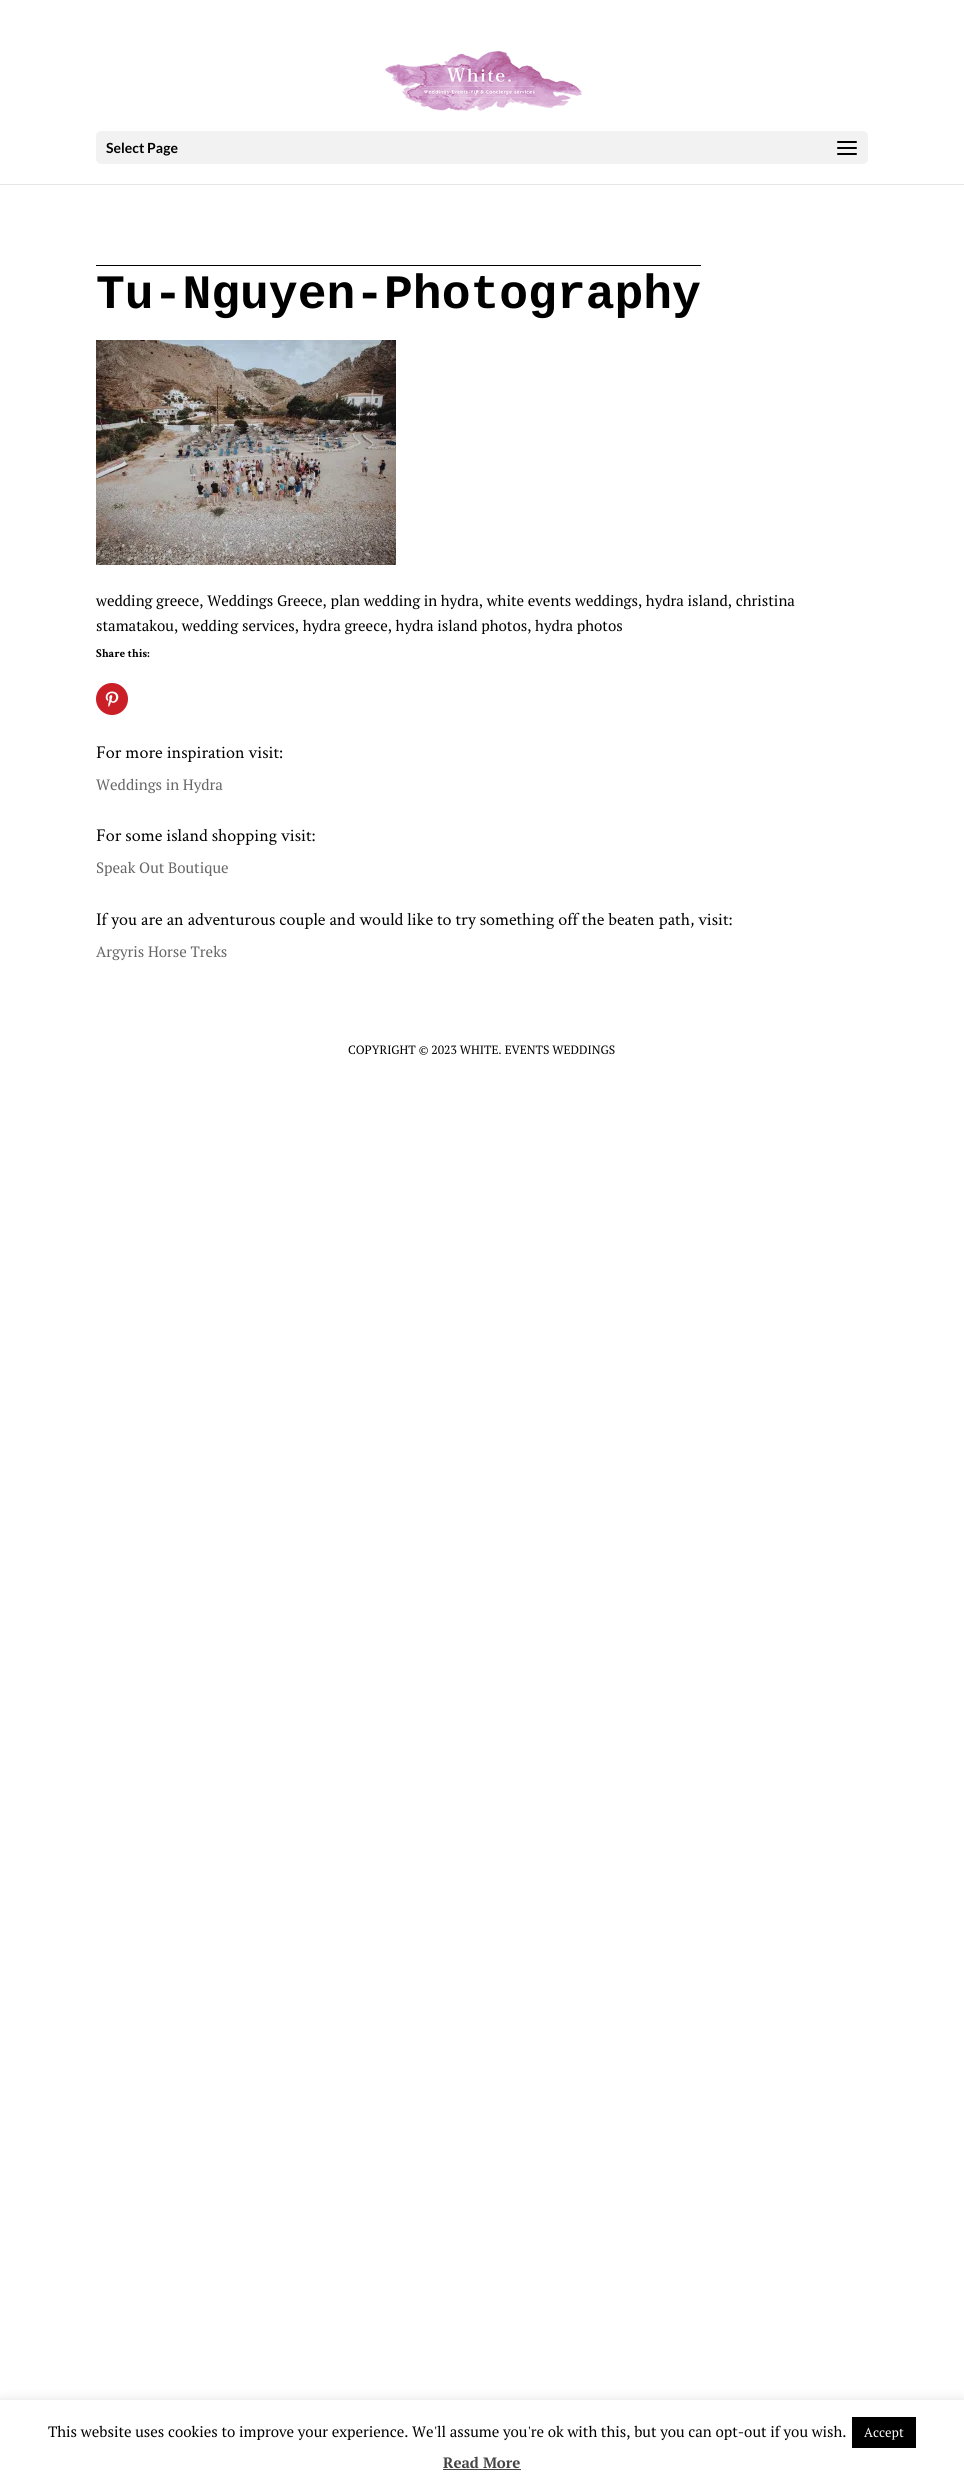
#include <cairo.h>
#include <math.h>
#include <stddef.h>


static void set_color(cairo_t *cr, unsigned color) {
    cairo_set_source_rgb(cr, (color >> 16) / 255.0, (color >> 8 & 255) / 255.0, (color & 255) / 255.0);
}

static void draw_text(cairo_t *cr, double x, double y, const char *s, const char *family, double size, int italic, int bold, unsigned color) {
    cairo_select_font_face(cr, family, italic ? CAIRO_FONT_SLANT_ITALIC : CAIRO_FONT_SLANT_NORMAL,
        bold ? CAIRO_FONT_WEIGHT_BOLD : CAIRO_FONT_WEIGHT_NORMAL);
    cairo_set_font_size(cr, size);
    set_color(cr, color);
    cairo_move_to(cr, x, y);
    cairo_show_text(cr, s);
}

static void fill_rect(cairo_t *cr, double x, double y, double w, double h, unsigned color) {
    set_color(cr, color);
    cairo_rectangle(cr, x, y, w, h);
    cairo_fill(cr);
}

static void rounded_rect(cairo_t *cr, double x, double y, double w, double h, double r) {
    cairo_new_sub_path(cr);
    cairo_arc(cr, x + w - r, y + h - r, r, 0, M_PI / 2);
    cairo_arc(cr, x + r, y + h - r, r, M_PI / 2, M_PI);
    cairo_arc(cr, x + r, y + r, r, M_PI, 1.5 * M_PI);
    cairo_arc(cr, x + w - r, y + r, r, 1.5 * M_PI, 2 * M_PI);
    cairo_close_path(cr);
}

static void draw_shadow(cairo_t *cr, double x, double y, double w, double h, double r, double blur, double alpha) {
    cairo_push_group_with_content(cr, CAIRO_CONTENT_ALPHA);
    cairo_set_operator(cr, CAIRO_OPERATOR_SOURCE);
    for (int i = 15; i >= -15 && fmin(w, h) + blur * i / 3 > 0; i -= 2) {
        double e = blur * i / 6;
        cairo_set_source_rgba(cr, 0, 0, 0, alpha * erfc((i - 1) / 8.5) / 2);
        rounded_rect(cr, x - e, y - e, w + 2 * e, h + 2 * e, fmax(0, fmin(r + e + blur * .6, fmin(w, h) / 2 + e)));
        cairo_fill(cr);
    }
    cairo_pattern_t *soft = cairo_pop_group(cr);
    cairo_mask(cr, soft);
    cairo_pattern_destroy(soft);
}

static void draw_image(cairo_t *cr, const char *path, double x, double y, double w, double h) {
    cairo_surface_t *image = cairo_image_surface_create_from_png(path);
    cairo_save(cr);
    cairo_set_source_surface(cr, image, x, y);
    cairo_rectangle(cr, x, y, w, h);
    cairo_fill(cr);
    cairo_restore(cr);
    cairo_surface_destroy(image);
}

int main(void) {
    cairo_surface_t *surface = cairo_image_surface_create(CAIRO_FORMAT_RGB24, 964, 2487);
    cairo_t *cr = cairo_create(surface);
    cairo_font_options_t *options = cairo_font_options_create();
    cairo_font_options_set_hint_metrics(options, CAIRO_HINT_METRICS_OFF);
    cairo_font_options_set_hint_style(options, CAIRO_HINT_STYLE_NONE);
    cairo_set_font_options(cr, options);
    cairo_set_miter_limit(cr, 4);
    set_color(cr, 0xFFFFFF);
    cairo_paint(cr);
    fill_rect(cr, 0, 184, 964, 1, 0xE6E6E6);
    draw_image(cr, "assets/img1.png", 385, 51, 197, 60);
    set_color(cr, 0xF2F2F2);
    rounded_rect(cr, 96, 131, 772, 33, 5);
    cairo_fill(cr);
    draw_text(cr, 106, 153, "Select Page", "Lato", 14, 0, 1, 0x000000);
    draw_image(cr, "assets/img2.png", 837, 141, 20, 14);
    fill_rect(cr, 96, 265, 605, 1, 0x000000);
    draw_text(cr, 96, 308, "Tu-Nguyen-Photography", "Liberation Mono", 48, 0, 1, 0x000000);
    draw_image(cr, "assets/img3.png", 96, 340, 300, 225);
    draw_text(cr, 96, 606, "wedding greece, Weddings Greece, plan wedding in hydra, white events weddings, hydra island, christina", "PT Serif", 15, 0, 0, 0x000000);
    draw_text(cr, 96, 631, "stamatakou, wedding services, hydra greece, hydra island photos, hydra photos", "PT Serif", 15, 0, 0, 0x000000);
    draw_text(cr, 96, 657, "Share this:", "Crimson Text", 12, 0, 1, 0x000000);
    set_color(cr, 0xCA1F27);
    cairo_new_path(cr);
    cairo_arc(cr, 112, 699, 16, 0, 2 * M_PI);
    cairo_fill(cr);
    draw_image(cr, "assets/img4.png", 105, 691, 14, 16);
    draw_text(cr, 96, 758, "For more inspiration visit:", "Crimson Text", 18, 0, 0, 0x000000);
    draw_text(cr, 96, 790, "Weddings in Hydra", "PT Serif", 15, 0, 0, 0x666666);
    draw_text(cr, 96, 841, "For some island shopping visit:", "Crimson Text", 18, 0, 0, 0x000000);
    draw_text(cr, 96, 873, "Speak Out Boutique", "PT Serif", 15, 0, 0, 0x666666);
    draw_text(cr, 96, 925, "If you are an adventurous couple and would like to try something off the beaten path, visit:", "Crimson Text", 18, 0, 0, 0x000000);
    draw_text(cr, 96, 957, "Argyris Horse Treks", "PT Serif", 15, 0, 0, 0x666666);
    draw_text(cr, 348, 1054, "COPYRIGHT © 2023 WHITE. EVENTS WEDDINGS", "PT Serif", 12, 0, 0, 0x000000);
    set_color(cr, 0xACABAB);
    draw_shadow(cr, 0, 2399, 964, 87, 0, 5, 0.3);
    fill_rect(cr, 0, 2400, 964, 87, 0xFFFFFF);
    draw_text(cr, 48, 2437, "This website uses cookies to improve your experience. We'll assume you're ok with this, but you can opt-out if you wish.", "PT Serif", 15, 0, 0, 0x000000);
    fill_rect(cr, 852, 2417, 64, 31, 0x000000);
    draw_text(cr, 864, 2437, "Accept", "PT Serif", 13, 0, 0, 0xFFFFFF);
    draw_text(cr, 443, 2468, "Read More", "PT Serif", 15, 0, 1, 0x444444);
    fill_rect(cr, 443, 2469, 78, 1, 0x444444);
    cairo_surface_write_to_png(surface, "output.png");
    cairo_font_options_destroy(options);
    cairo_destroy(cr);
    cairo_surface_destroy(surface);
    return 0;
}
